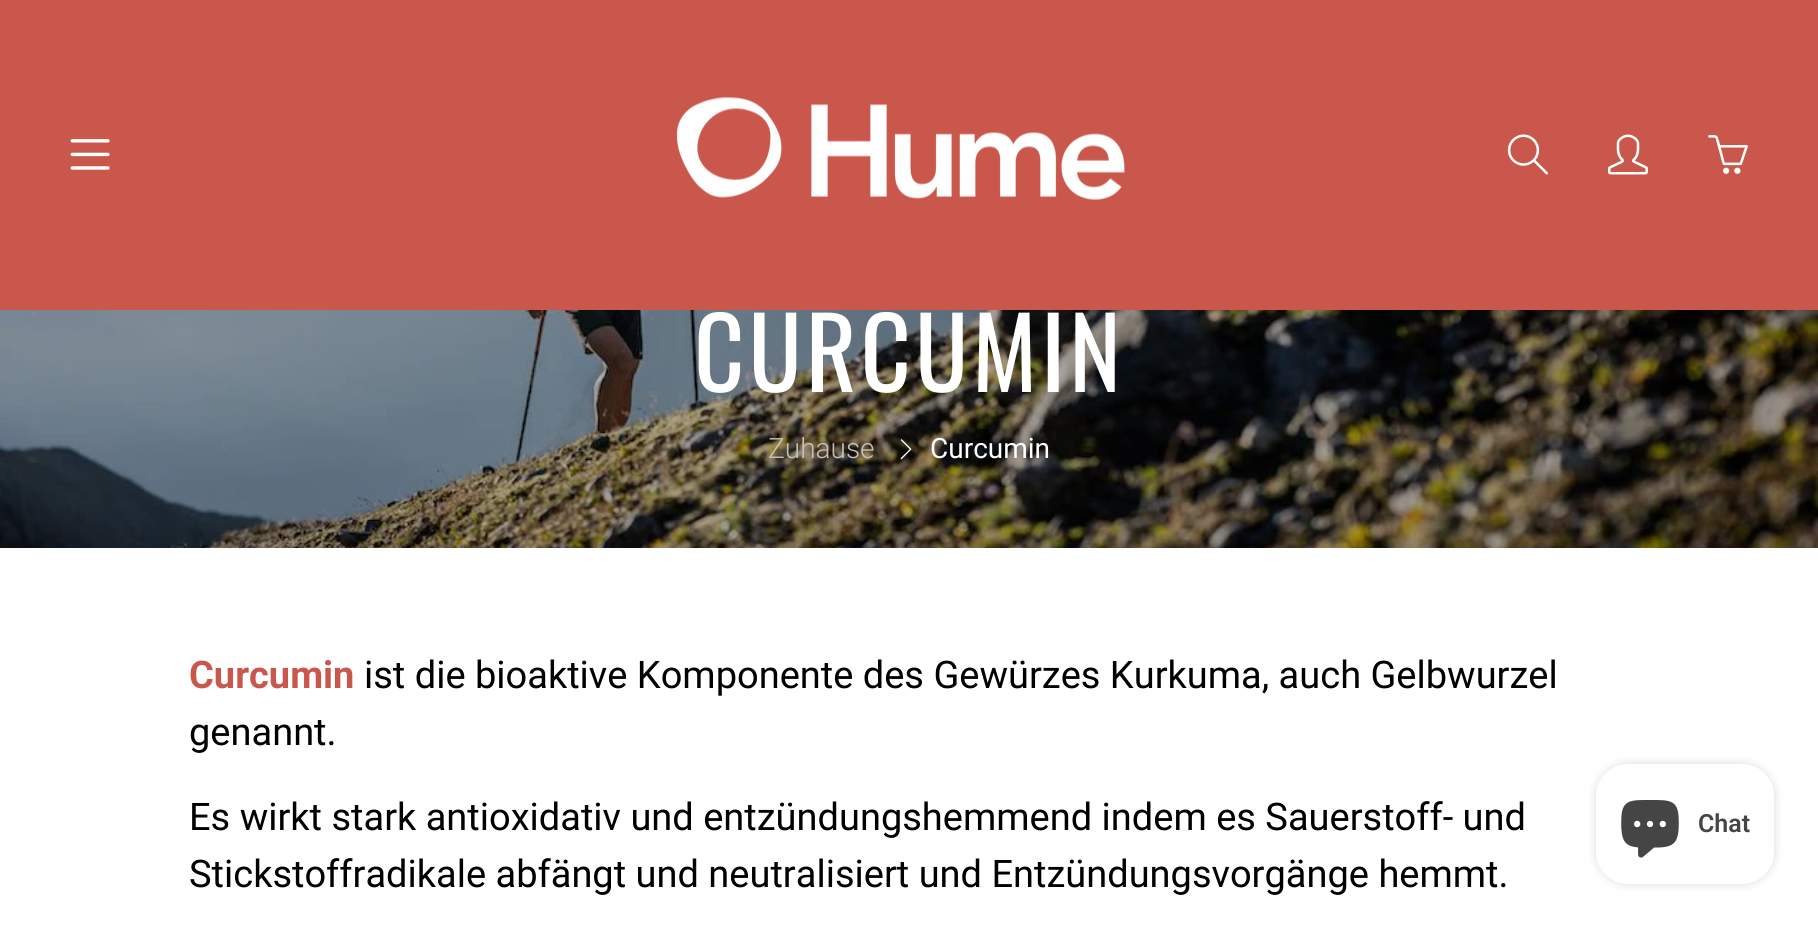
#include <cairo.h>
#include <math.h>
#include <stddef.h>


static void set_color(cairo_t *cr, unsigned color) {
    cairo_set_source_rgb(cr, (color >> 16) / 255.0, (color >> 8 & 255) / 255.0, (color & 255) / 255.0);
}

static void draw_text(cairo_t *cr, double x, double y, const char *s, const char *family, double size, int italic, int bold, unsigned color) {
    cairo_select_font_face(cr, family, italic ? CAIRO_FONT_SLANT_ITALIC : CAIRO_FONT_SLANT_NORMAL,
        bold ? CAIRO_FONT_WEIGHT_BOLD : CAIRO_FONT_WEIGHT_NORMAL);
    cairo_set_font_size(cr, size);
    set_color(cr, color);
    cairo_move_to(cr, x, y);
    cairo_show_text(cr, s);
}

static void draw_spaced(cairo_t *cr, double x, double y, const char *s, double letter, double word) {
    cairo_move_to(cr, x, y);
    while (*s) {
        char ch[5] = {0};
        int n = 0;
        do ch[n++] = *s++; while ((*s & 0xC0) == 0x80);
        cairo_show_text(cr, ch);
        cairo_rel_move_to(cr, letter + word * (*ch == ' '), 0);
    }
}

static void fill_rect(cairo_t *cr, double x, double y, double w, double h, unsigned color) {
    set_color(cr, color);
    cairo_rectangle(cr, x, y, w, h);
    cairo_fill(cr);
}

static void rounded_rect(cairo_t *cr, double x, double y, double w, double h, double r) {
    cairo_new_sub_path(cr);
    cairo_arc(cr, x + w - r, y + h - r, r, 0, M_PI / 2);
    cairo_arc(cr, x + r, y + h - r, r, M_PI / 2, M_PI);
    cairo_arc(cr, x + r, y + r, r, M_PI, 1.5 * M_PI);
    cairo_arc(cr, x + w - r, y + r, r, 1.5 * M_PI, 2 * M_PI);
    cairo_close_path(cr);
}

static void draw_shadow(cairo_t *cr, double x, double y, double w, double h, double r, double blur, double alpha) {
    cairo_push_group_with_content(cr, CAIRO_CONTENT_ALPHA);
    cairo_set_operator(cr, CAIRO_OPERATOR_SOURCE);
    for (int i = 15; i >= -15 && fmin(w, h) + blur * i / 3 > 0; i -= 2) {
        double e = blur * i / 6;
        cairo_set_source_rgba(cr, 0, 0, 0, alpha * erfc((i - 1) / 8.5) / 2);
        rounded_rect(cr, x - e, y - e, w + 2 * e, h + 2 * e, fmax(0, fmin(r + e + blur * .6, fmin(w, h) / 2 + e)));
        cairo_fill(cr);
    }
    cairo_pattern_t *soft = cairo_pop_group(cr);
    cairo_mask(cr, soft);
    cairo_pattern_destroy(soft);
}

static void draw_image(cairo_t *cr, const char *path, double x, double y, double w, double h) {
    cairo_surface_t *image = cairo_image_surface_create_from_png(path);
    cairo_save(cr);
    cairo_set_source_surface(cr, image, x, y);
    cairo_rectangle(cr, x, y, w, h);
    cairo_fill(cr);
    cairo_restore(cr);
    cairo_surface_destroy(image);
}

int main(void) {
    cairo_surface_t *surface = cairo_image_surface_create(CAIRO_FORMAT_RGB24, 1818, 925);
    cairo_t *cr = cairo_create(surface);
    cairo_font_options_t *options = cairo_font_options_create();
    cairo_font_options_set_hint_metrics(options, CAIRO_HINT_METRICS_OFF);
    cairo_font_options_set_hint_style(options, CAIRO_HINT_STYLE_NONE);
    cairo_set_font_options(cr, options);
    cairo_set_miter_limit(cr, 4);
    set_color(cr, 0xFFFFFF);
    cairo_paint(cr);
    fill_rect(cr, 0, 0, 1818, 310, 0xC9574C);
    draw_image(cr, "assets/img1.png", 676, 97, 449, 103);
    draw_image(cr, "assets/img2.png", 70, 139, 40, 31);
    draw_image(cr, "assets/img3.png", 1507, 134, 41, 41);
    draw_image(cr, "assets/img4.png", 1608, 134, 40, 41);
    draw_image(cr, "assets/img5.png", 1708, 135, 40, 39);
    draw_image(cr, "assets/img6.png", 0, 310, 1818, 238);
    cairo_select_font_face(cr, "Oswald", CAIRO_FONT_SLANT_NORMAL, CAIRO_FONT_WEIGHT_NORMAL);
    cairo_set_font_size(cr, 98);
    set_color(cr, 0xFFFFFF);
    draw_spaced(cr, 694, 392, "CURCUMIN", 4, 0);
    draw_text(cr, 768, 458, "Zuhause", "Roboto Light", 28, 0, 0, 0xC5C1B9);
    draw_image(cr, "assets/img7.png", 900, 439, 12, 21);
    draw_text(cr, 930, 458, "Curcumin", "Roboto", 28, 0, 0, 0xFFFFFF);
    draw_text(cr, 189, 688, "Curcumin", "Roboto", 38, 0, 1, 0xC9574C);
    draw_text(cr, 364, 688, "ist die bioaktive Komponente des Gewürzes Kurkuma, auch Gelbwurzel", "Roboto", 38, 0, 0, 0x000000);
    draw_text(cr, 189, 745, "genannt.", "Roboto", 38, 0, 0, 0x000000);
    draw_text(cr, 189, 830, "Es wirkt stark antioxidativ und entzündungshemmend indem es Sauerstoff- und", "Roboto", 38, 0, 0, 0x000000);
    draw_text(cr, 189, 887, "Stickstoffradikale abfängt und neutralisiert und Entzündungsvorgänge hemmt.", "Roboto", 38, 0, 0, 0x000000);
    set_color(cr, 0x000000);
    draw_shadow(cr, 1596, 764, 178, 120, 32, 5, 0.15);
    set_color(cr, 0xFFFFFF);
    rounded_rect(cr, 1596, 764, 178, 120, 32);
    cairo_fill(cr);
    draw_image(cr, "assets/img8.png", 1621, 800, 58, 58);
    draw_text(cr, 1698, 832, "Chat", "Roboto SemiBold", 25, 0, 0, 0x454545);
    cairo_surface_write_to_png(surface, "output.png");
    cairo_font_options_destroy(options);
    cairo_destroy(cr);
    cairo_surface_destroy(surface);
    return 0;
}
